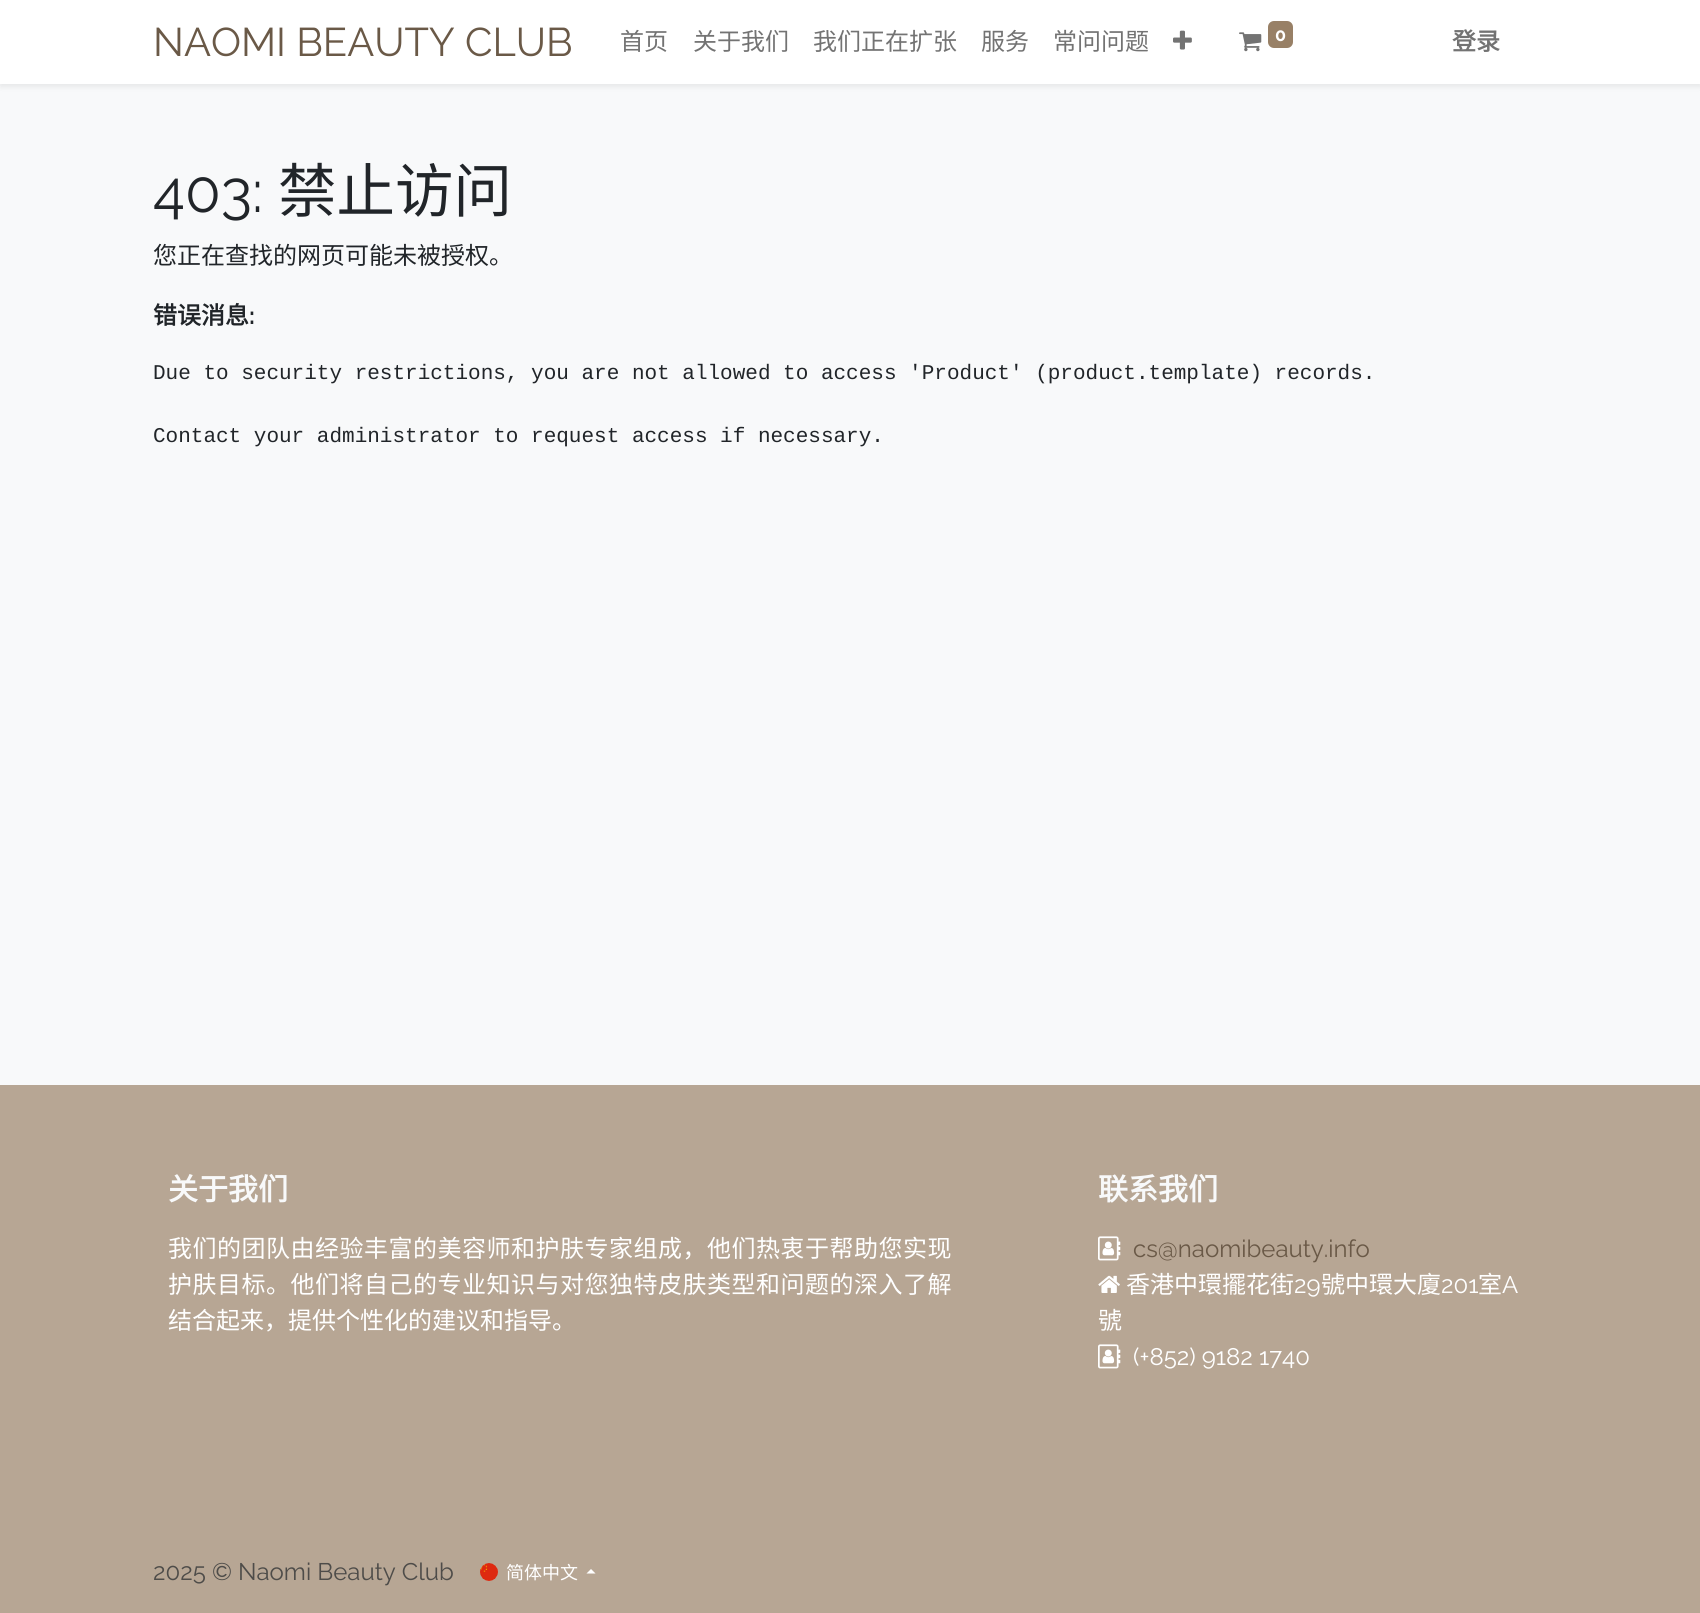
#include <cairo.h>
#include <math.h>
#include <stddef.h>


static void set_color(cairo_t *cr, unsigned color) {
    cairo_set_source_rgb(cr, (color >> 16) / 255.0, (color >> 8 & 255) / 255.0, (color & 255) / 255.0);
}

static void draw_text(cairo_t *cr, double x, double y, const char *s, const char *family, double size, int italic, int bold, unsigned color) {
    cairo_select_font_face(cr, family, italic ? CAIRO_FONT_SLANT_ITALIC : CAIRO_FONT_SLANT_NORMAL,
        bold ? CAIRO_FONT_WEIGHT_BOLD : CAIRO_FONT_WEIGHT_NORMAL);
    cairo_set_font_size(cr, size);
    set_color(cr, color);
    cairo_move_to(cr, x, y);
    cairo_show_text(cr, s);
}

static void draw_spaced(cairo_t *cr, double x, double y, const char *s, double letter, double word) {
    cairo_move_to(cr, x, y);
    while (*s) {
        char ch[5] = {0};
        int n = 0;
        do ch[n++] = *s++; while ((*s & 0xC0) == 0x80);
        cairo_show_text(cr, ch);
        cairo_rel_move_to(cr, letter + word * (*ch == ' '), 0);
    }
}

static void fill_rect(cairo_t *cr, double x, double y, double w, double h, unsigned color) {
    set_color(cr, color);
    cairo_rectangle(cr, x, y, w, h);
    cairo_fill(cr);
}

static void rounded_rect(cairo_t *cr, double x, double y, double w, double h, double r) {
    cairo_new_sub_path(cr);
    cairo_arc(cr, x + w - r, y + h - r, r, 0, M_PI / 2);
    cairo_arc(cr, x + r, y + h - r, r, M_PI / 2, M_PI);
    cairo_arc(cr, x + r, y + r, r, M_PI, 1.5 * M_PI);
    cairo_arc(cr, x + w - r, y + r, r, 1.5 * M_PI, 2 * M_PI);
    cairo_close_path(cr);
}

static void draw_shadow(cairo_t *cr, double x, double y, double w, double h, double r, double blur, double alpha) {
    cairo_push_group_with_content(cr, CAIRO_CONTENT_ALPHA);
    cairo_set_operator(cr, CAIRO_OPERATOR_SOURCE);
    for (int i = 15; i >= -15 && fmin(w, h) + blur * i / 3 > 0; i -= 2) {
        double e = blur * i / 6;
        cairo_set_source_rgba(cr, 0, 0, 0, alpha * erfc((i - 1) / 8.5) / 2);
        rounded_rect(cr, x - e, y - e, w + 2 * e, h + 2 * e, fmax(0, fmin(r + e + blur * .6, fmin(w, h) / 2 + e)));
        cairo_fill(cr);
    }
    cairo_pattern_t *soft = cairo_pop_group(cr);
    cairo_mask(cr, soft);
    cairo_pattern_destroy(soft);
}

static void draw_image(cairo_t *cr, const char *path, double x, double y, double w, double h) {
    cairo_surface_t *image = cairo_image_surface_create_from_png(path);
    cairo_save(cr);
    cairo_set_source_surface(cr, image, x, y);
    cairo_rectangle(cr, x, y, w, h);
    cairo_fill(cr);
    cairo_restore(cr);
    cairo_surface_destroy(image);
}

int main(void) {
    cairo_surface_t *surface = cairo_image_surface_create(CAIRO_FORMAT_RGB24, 1700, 1613);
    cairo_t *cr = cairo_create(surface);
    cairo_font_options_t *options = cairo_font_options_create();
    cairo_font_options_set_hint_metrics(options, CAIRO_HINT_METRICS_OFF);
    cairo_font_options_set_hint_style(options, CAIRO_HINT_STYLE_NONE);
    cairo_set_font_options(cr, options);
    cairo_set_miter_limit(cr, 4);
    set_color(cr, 0xF8F9FA);
    cairo_paint(cr);
    set_color(cr, 0x000000);
    draw_shadow(cr, 0, 3, 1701, 84, 0, 3, 0.07);
    fill_rect(cr, 0, 0, 1700, 84, 0xFFFFFF);
    draw_text(cr, 153, 56, "NAOMI BEAUTY CLUB", "Raleway", 40, 0, 0, 0x6A5947);
    draw_text(cr, 620, 50, "首页", "Noto Sans CJK SC", 24, 0, 0, 0x737373);
    draw_text(cr, 693, 50, "关于我们", "Noto Sans CJK SC", 24, 0, 0, 0x737373);
    draw_text(cr, 813, 50, "我们正在扩张", "Noto Sans CJK SC", 24, 0, 0, 0x737373);
    draw_text(cr, 981, 50, "服务", "Noto Sans CJK SC", 24, 0, 0, 0x737373);
    draw_text(cr, 1053, 50, "常问问题", "Noto Sans CJK SC", 24, 0, 0, 0x737373);
    draw_image(cr, "assets/img1.png", 1173, 30, 19, 20);
    draw_image(cr, "assets/img2.png", 1239, 32, 23, 20);
    set_color(cr, 0x988066);
    rounded_rect(cr, 1268, 21, 25, 27, 6);
    cairo_fill(cr);
    draw_text(cr, 1275, 41, "0", "Raleway", 18, 0, 1, 0xFFFFFF);
    draw_text(cr, 1452, 50, "登录", "Noto Sans CJK SC", 24, 0, 1, 0x737373);
    draw_text(cr, 153, 212, "403:", "Raleway", 58.5, 0, 0, 0x212529);
    draw_text(cr, 278, 212, "禁止访问", "Noto Sans CJK SC", 58.5, 0, 0, 0x212529);
    draw_text(cr, 153, 264, "您正在查找的网页可能未被授权。", "Noto Sans CJK SC", 24, 0, 0, 0x212529);
    draw_text(cr, 153, 324, "错误消息", "Noto Sans CJK SC", 24, 0, 1, 0x212529);
    draw_text(cr, 249, 324, ":", "Raleway", 24, 0, 1, 0x212529);
    draw_text(cr, 153, 379, "Due to security restrictions, you are not allowed to access 'Product' (product.template) records.", "Liberation Mono", 21, 0, 0, 0x212529);
    draw_text(cr, 153, 442, "Contact your administrator to request access if necessary.", "Liberation Mono", 21, 0, 0, 0x212529);
    fill_rect(cr, 0, 1085, 1700, 528, 0xB7A694);
    draw_text(cr, 168, 1200, "关于我们", "Noto Sans CJK SC", 30, 0, 1, 0xF8F9FA);
    cairo_select_font_face(cr, "Noto Sans CJK SC", CAIRO_FONT_SLANT_NORMAL, CAIRO_FONT_WEIGHT_NORMAL);
    cairo_set_font_size(cr, 24);
    set_color(cr, 0xFFFFFF);
    draw_spaced(cr, 168, 1257, "我们的团队由经验丰富的美容师和护肤专家组成，他们热衷于帮助您实现", 0.5, 0);
    draw_spaced(cr, 168, 1293, "护肤目标。他们将自己的专业知识与对您独特皮肤类型和问题的深入了解", 0.5, 0);
    draw_text(cr, 168, 1329, "结合起来，提供个性化的建议和指导。", "Noto Sans CJK SC", 24, 0, 0, 0xFFFFFF);
    draw_text(cr, 1098, 1200, "联系我们", "Noto Sans CJK SC", 30, 0, 1, 0xF8F9FA);
    draw_image(cr, "assets/img3.png", 1098, 1236, 23, 25);
    draw_text(cr, 1133, 1257, "cs@naomibeauty.info", "Raleway", 24, 0, 0, 0x6A5947);
    draw_image(cr, "assets/img4.png", 1098, 1275, 22, 18);
    draw_text(cr, 1126, 1293, "香港中環擺花街", "Noto Sans CJK SC", 24, 0, 0, 0xFFFFFF);
    draw_text(cr, 1294, 1293, "29", "Raleway", 24, 0, 0, 0xFFFFFF);
    draw_text(cr, 1321, 1293, "號中環大廈", "Noto Sans CJK SC", 24, 0, 0, 0xFFFFFF);
    draw_text(cr, 1441, 1293, "201", "Raleway", 24, 0, 0, 0xFFFFFF);
    draw_text(cr, 1478, 1293, "室", "Noto Sans CJK SC", 24, 0, 0, 0xFFFFFF);
    draw_text(cr, 1502, 1293, "A", "Raleway", 24, 0, 0, 0xFFFFFF);
    draw_text(cr, 1098, 1329, "號", "Noto Sans CJK SC", 24, 0, 0, 0xFFFFFF);
    draw_image(cr, "assets/img3.png", 1098, 1344, 23, 25);
    draw_text(cr, 1133, 1365, "(+852) 9182 1740", "Raleway", 24, 0, 0, 0xFFFFFF);
    draw_text(cr, 153, 1580, "2025 © Naomi Beauty Club", "Raleway", 24, 0, 0, 0x4E4C49);
    draw_image(cr, "assets/img5.png", 480, 1563, 18, 18);
    draw_text(cr, 506, 1579, "简体中文", "Noto Sans CJK SC", 18, 0, 0, 0xFFFFFF);
    cairo_new_path(cr);
    cairo_move_to(cr, 595.5, 1573.5);
    cairo_line_to(cr, 586.5, 1573.5);
    cairo_line_to(cr, 591, 1569);
    cairo_close_path(cr);
    cairo_fill(cr);
    cairo_surface_write_to_png(surface, "output.png");
    cairo_font_options_destroy(options);
    cairo_destroy(cr);
    cairo_surface_destroy(surface);
    return 0;
}
